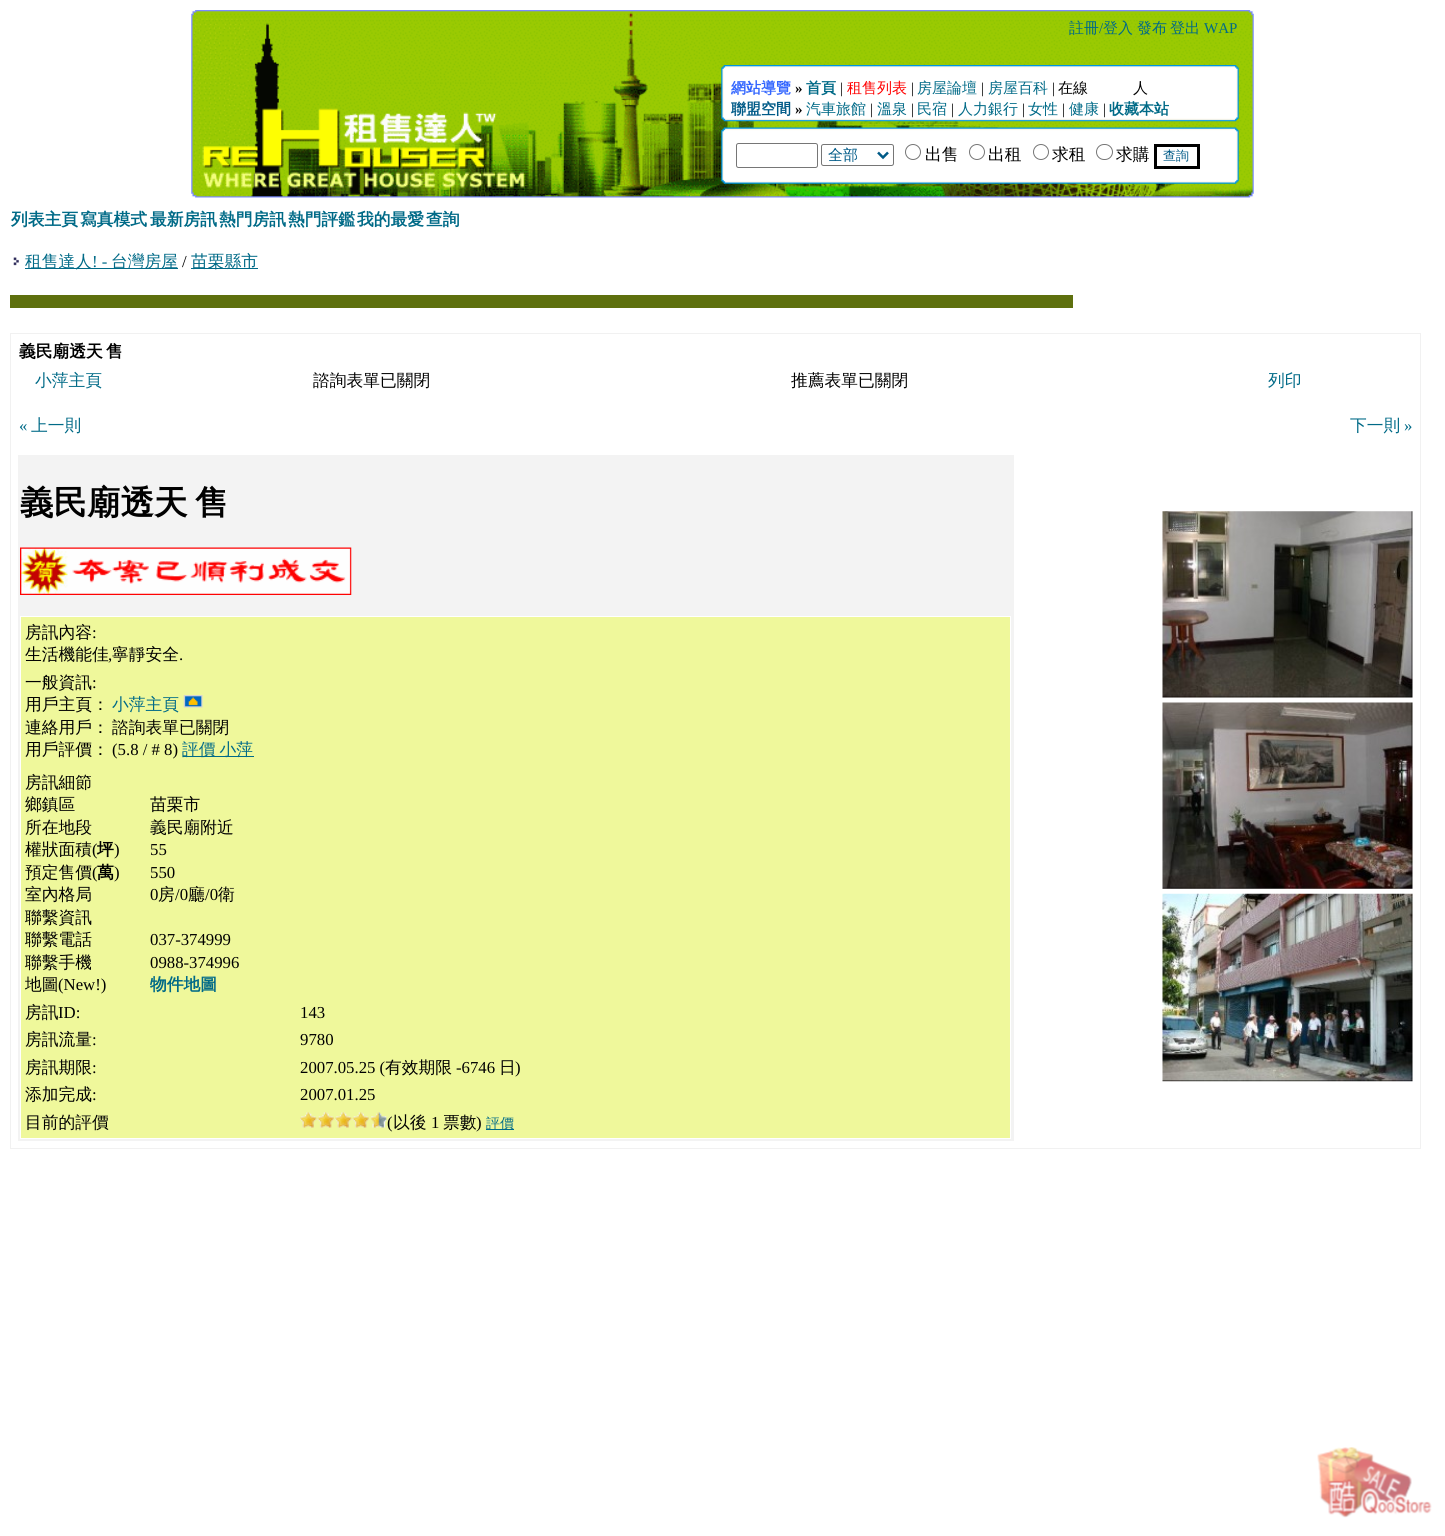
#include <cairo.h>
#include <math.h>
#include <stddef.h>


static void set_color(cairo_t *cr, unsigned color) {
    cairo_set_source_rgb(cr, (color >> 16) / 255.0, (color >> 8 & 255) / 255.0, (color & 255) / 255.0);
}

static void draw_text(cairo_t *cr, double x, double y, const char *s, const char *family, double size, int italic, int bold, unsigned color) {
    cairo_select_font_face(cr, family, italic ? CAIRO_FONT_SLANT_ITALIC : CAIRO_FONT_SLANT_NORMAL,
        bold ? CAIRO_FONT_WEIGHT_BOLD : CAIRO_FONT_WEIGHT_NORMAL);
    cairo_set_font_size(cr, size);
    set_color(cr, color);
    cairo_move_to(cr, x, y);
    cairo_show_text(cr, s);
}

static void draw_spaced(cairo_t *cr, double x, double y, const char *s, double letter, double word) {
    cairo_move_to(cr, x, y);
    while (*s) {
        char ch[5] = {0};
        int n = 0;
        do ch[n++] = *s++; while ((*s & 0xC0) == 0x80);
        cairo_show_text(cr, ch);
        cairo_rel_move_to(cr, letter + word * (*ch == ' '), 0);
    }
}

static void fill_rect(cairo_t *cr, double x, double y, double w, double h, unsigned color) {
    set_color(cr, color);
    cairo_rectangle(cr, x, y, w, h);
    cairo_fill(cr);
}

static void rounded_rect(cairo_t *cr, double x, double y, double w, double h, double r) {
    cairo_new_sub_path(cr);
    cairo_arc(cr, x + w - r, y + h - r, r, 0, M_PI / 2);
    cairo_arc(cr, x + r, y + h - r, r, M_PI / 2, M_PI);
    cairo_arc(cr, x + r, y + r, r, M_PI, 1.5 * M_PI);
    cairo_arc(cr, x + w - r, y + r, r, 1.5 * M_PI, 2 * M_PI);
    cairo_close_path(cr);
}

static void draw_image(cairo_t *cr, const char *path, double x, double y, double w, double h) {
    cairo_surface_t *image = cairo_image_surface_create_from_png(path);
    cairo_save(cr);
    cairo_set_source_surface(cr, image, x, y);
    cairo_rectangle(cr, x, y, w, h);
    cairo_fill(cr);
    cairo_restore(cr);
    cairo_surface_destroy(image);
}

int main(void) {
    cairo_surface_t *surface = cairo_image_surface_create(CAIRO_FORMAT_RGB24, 1445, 1536);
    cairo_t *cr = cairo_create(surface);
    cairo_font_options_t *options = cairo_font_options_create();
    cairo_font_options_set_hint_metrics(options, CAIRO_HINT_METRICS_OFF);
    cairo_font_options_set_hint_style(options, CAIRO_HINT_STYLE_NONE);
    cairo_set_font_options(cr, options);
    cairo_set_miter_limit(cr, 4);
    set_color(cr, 0xFFFFFF);
    cairo_paint(cr);
    draw_image(cr, "assets/img1.png", 191, 10, 1063, 188);
    draw_text(cr, 1069, 33, "註冊", "WenQuanYi Zen Hei Medium", 15, 0, 0, 0x006A87);
    draw_text(cr, 1099, 33, "/", "Liberation Serif", 15, 0, 0, 0x006A87);
    draw_text(cr, 1103, 33, "登入", "WenQuanYi Zen Hei Medium", 15, 0, 0, 0x006A87);
    draw_text(cr, 1137, 33, "發布", "WenQuanYi Zen Hei Medium", 15, 0, 0, 0x006A87);
    draw_text(cr, 1170, 33, "登出", "WenQuanYi Zen Hei Medium", 15, 0, 0, 0x006A87);
    draw_text(cr, 1204, 33, "WAP", "Liberation Serif", 15, 0, 0, 0x006A87);
    draw_image(cr, "assets/img2.png", 721, 65, 518, 57);
    draw_text(cr, 731, 93, "網站導覽", "WenQuanYi Zen Hei", 15, 0, 1, 0x3366FF);
    draw_text(cr, 795, 93, "»", "Liberation Serif", 15, 0, 1, 0x000000);
    draw_text(cr, 806, 93, "首頁", "WenQuanYi Zen Hei", 15, 0, 1, 0x006A87);
    draw_text(cr, 840, 93, "|", "Liberation Serif", 15, 0, 0, 0x000000);
    draw_text(cr, 847, 93, "租售列表", "WenQuanYi Zen Hei Medium", 15, 0, 0, 0xFF0000);
    draw_text(cr, 911, 93, "|", "Liberation Serif", 15, 0, 0, 0x000000);
    draw_text(cr, 917, 93, "房屋論壇", "WenQuanYi Zen Hei Medium", 15, 0, 0, 0x006A87);
    draw_text(cr, 981, 93, "|", "Liberation Serif", 15, 0, 0, 0x000000);
    draw_text(cr, 988, 93, "房屋百科", "WenQuanYi Zen Hei Medium", 15, 0, 0, 0x006A87);
    draw_text(cr, 1052, 93, "|", "Liberation Serif", 15, 0, 0, 0x000000);
    draw_text(cr, 1058, 93, "在線", "WenQuanYi Zen Hei Medium", 15, 0, 0, 0x000000);
    draw_text(cr, 1133, 93, "人", "WenQuanYi Zen Hei Medium", 15, 0, 0, 0x000000);
    draw_text(cr, 731, 114, "聯盟空間", "WenQuanYi Zen Hei", 15, 0, 1, 0x005A87);
    draw_text(cr, 795, 114, "»", "Liberation Serif", 15, 0, 1, 0x000000);
    draw_text(cr, 806, 114, "汽車旅館", "WenQuanYi Zen Hei Medium", 15, 0, 0, 0x006A87);
    draw_text(cr, 870, 114, "|", "Liberation Serif", 15, 0, 0, 0x000000);
    draw_text(cr, 877, 114, "溫泉", "WenQuanYi Zen Hei Medium", 15, 0, 0, 0x006A87);
    draw_text(cr, 911, 114, "|", "Liberation Serif", 15, 0, 0, 0x000000);
    draw_text(cr, 917, 114, "民宿", "WenQuanYi Zen Hei Medium", 15, 0, 0, 0x006A87);
    draw_text(cr, 951, 114, "|", "Liberation Serif", 15, 0, 0, 0x000000);
    draw_text(cr, 958, 114, "人力銀行", "WenQuanYi Zen Hei Medium", 15, 0, 0, 0x006A87);
    draw_text(cr, 1022, 114, "|", "Liberation Serif", 15, 0, 0, 0x000000);
    draw_text(cr, 1028, 114, "女性", "WenQuanYi Zen Hei Medium", 15, 0, 0, 0x006A87);
    draw_text(cr, 1062, 114, "|", "Liberation Serif", 15, 0, 0, 0x000000);
    draw_text(cr, 1069, 114, "健康", "WenQuanYi Zen Hei Medium", 15, 0, 0, 0x006A87);
    draw_text(cr, 1103, 114, "|", "Liberation Serif", 15, 0, 0, 0x000000);
    draw_text(cr, 1109, 114, "收藏本站", "WenQuanYi Zen Hei", 15, 0, 1, 0x006A87);
    draw_image(cr, "assets/img3.png", 721, 127, 518, 57);
    rounded_rect(cr, 736.5, 143.5, 81, 24, 2);
    set_color(cr, 0x767676);
    cairo_set_line_width(cr, 1);
    cairo_stroke(cr);
    rounded_rect(cr, 821.5, 144.5, 72, 21, 2);
    cairo_stroke(cr);
    cairo_new_path(cr);
    cairo_move_to(cr, 878, 152.5);
    cairo_line_to(cr, 883, 157.5);
    cairo_line_to(cr, 888, 152.5);
    set_color(cr, 0x005A87);
    cairo_set_line_width(cr, 2.5);
    cairo_stroke(cr);
    draw_text(cr, 828, 160, "全部", "WenQuanYi Zen Hei Medium", 15, 0, 0, 0x005A87);
    cairo_new_path(cr);
    cairo_arc(cr, 913, 152, 7.5, 0, 2 * M_PI);
    set_color(cr, 0x767676);
    cairo_set_line_width(cr, 1);
    cairo_stroke(cr);
    draw_text(cr, 925, 160, "出售", "WenQuanYi Zen Hei Medium", 16.75, 0, 0, 0x000000);
    cairo_new_path(cr);
    cairo_arc(cr, 977, 152, 7.5, 0, 2 * M_PI);
    set_color(cr, 0x767676);
    cairo_stroke(cr);
    draw_text(cr, 988, 160, "出租", "WenQuanYi Zen Hei Medium", 16.75, 0, 0, 0x000000);
    cairo_new_path(cr);
    cairo_arc(cr, 1041, 152, 7.5, 0, 2 * M_PI);
    set_color(cr, 0x767676);
    cairo_stroke(cr);
    draw_text(cr, 1052, 160, "求租", "WenQuanYi Zen Hei Medium", 16.75, 0, 0, 0x000000);
    rounded_rect(cr, 1096.5, 144.5, 16, 15, 7.5);
    set_color(cr, 0x767676);
    cairo_stroke(cr);
    draw_text(cr, 1116, 160, "求購", "WenQuanYi Zen Hei Medium", 16.75, 0, 0, 0x000000);
    cairo_rectangle(cr, 1155.5, 145.5, 43, 22);
    cairo_set_line_width(cr, 3);
    cairo_stroke(cr);
    draw_text(cr, 1163, 160, "查詢", "WenQuanYi Zen Hei Medium", 13, 0, 0, 0x005A87);
    draw_text(cr, 11, 225, "列表主頁", "WenQuanYi Zen Hei", 16.75, 0, 1, 0x006A87);
    draw_text(cr, 80, 225, "寫真模式", "WenQuanYi Zen Hei", 16.75, 0, 1, 0x006A87);
    draw_text(cr, 150, 225, "最新房訊", "WenQuanYi Zen Hei", 16.75, 0, 1, 0x006A87);
    draw_text(cr, 219, 225, "熱門房訊", "WenQuanYi Zen Hei", 16.75, 0, 1, 0x006A87);
    draw_text(cr, 288, 225, "熱門評鑑", "WenQuanYi Zen Hei", 16.75, 0, 1, 0x006A87);
    draw_text(cr, 357, 225, "我的最愛", "WenQuanYi Zen Hei", 16.75, 0, 1, 0x006A87);
    draw_text(cr, 426, 225, "查詢", "WenQuanYi Zen Hei", 16.75, 0, 1, 0x006A87);
    draw_image(cr, "assets/img4.png", 13, 257, 6, 9);
    fill_rect(cr, 25, 268, 153, 1, 0x006A87);
    draw_text(cr, 25, 267, "租售達人", "WenQuanYi Zen Hei Medium", 16.75, 0, 0, 0x006A87);
    draw_text(cr, 92, 267, "! -", "Liberation Serif", 16.75, 0, 0, 0x006A87);
    draw_text(cr, 111, 267, "台灣房屋", "WenQuanYi Zen Hei Medium", 16.75, 0, 0, 0x006A87);
    draw_text(cr, 182, 267, "/", "Liberation Serif", 16.75, 0, 0, 0x000000);
    fill_rect(cr, 191, 268, 67, 1, 0x006A87);
    draw_text(cr, 191, 267, "苗栗縣市", "WenQuanYi Zen Hei Medium", 16.75, 0, 0, 0x006A87);
    fill_rect(cr, 10, 295, 1063, 13, 0x5E700E);
    cairo_rectangle(cr, 10.5, 333.5, 1410, 815);
    set_color(cr, 0xF1F1F1);
    cairo_set_line_width(cr, 1);
    cairo_stroke(cr);
    draw_text(cr, 19, 357, "義民廟透天", "WenQuanYi Zen Hei", 16.75, 0, 1, 0x000000);
    draw_text(cr, 106, 357, "售", "WenQuanYi Zen Hei", 16.75, 0, 1, 0x000000);
    draw_text(cr, 35, 386, "小萍主頁", "WenQuanYi Zen Hei Medium", 16.75, 0, 0, 0x006A87);
    draw_text(cr, 313, 386, "諮詢表單已關閉", "WenQuanYi Zen Hei Medium", 16.75, 0, 0, 0x000000);
    draw_text(cr, 791, 386, "推薦表單已關閉", "WenQuanYi Zen Hei Medium", 16.75, 0, 0, 0x000000);
    draw_text(cr, 1268, 386, "列印", "WenQuanYi Zen Hei Medium", 16.75, 0, 0, 0x006A87);
    draw_text(cr, 19, 431, "«", "Liberation Serif", 16.75, 0, 0, 0x006A87);
    draw_text(cr, 31, 431, "上一則", "WenQuanYi Zen Hei Medium", 16.75, 0, 0, 0x006A87);
    draw_text(cr, 1350, 431, "下一則", "WenQuanYi Zen Hei Medium", 16.75, 0, 0, 0x006A87);
    draw_text(cr, 1404, 431, "»", "Liberation Serif", 16.75, 0, 0, 0x006A87);
    fill_rect(cr, 18, 455, 996, 686, 0xF3F3F3);
    draw_text(cr, 20, 514, "義民廟透天", "WenQuanYi Zen Hei", 33.5, 0, 1, 0x000000);
    draw_text(cr, 195, 514, "售", "WenQuanYi Zen Hei", 33.5, 0, 1, 0x000000);
    draw_image(cr, "assets/img5.png", 20, 547, 332, 48);
    set_color(cr, 0xEFF89B);
    cairo_rectangle(cr, 20.5, 616.5, 990, 522);
    cairo_fill_preserve(cr);
    set_color(cr, 0xFFFFFF);
    cairo_stroke(cr);
    draw_text(cr, 25, 638, "房訊內容", "WenQuanYi Zen Hei Medium", 16.75, 0, 0, 0x000000);
    draw_text(cr, 92, 638, ":", "Liberation Serif", 16.75, 0, 0, 0x000000);
    draw_text(cr, 25, 660, "生活機能佳", "WenQuanYi Zen Hei Medium", 16.75, 0, 0, 0x000000);
    draw_text(cr, 108, 660, ",", "Liberation Serif", 16.75, 0, 0, 0x000000);
    draw_text(cr, 112, 660, "寧靜安全", "WenQuanYi Zen Hei Medium", 16.75, 0, 0, 0x000000);
    draw_text(cr, 179, 660, ".", "Liberation Serif", 16.75, 0, 0, 0x000000);
    draw_text(cr, 25, 688, "一般資訊", "WenQuanYi Zen Hei Medium", 16.75, 0, 0, 0x000000);
    draw_text(cr, 92, 688, ":", "Liberation Serif", 16.75, 0, 0, 0x000000);
    draw_text(cr, 25, 710, "用戶主頁：", "WenQuanYi Zen Hei Medium", 16.75, 0, 0, 0x000000);
    draw_text(cr, 112, 710, "小萍主頁", "WenQuanYi Zen Hei Medium", 16.75, 0, 0, 0x006A87);
    draw_image(cr, "assets/img6.png", 183, 695, 20, 13);
    draw_text(cr, 25, 733, "連絡用戶：", "WenQuanYi Zen Hei Medium", 16.75, 0, 0, 0x000000);
    draw_text(cr, 112, 733, "諮詢表單已關閉", "WenQuanYi Zen Hei Medium", 16.75, 0, 0, 0x000000);
    draw_text(cr, 25, 755, "用戶評價：", "WenQuanYi Zen Hei Medium", 16.75, 0, 0, 0x000000);
    draw_text(cr, 112, 755, "(5.8 / # 8)", "Liberation Serif", 16.75, 0, 0, 0x000000);
    fill_rect(cr, 183, 756, 71, 1, 0x006A87);
    cairo_select_font_face(cr, "WenQuanYi Zen Hei Medium", CAIRO_FONT_SLANT_NORMAL, CAIRO_FONT_WEIGHT_NORMAL);
    draw_spaced(cr, 182, 755, "評價 小萍", 0, -1);
    draw_text(cr, 25, 788, "房訊細節", "WenQuanYi Zen Hei Medium", 16.75, 0, 0, 0x000000);
    draw_text(cr, 25, 810, "鄉鎮區", "WenQuanYi Zen Hei Medium", 16.75, 0, 0, 0x000000);
    draw_text(cr, 150, 810, "苗栗市", "WenQuanYi Zen Hei Medium", 16.75, 0, 0, 0x000000);
    draw_text(cr, 25, 833, "所在地段", "WenQuanYi Zen Hei Medium", 16.75, 0, 0, 0x000000);
    draw_text(cr, 150, 833, "義民廟附近", "WenQuanYi Zen Hei Medium", 16.75, 0, 0, 0x000000);
    draw_text(cr, 25, 855, "權狀面積", "WenQuanYi Zen Hei Medium", 16.75, 0, 0, 0x000000);
    draw_text(cr, 92, 855, "(", "Liberation Serif", 16.75, 0, 0, 0x000000);
    draw_text(cr, 97, 855, "坪", "WenQuanYi Zen Hei", 16.75, 0, 1, 0x000000);
    draw_text(cr, 114, 855, ")", "Liberation Serif", 16.75, 0, 0, 0x000000);
    draw_text(cr, 150, 855, "55", "Liberation Serif", 16.75, 0, 0, 0x000000);
    draw_text(cr, 25, 878, "預定售價", "WenQuanYi Zen Hei Medium", 16.75, 0, 0, 0x000000);
    draw_text(cr, 92, 878, "(", "Liberation Serif", 16.75, 0, 0, 0x000000);
    draw_text(cr, 97, 878, "萬", "WenQuanYi Zen Hei", 16.75, 0, 1, 0x000000);
    draw_text(cr, 114, 878, ")", "Liberation Serif", 16.75, 0, 0, 0x000000);
    draw_text(cr, 150, 878, "550", "Liberation Serif", 16.75, 0, 0, 0x000000);
    draw_text(cr, 25, 900, "室內格局", "WenQuanYi Zen Hei Medium", 16.75, 0, 0, 0x000000);
    draw_text(cr, 150, 900, "0", "Liberation Serif", 16.75, 0, 0, 0x000000);
    draw_text(cr, 158, 900, "房", "WenQuanYi Zen Hei Medium", 16.75, 0, 0, 0x000000);
    draw_text(cr, 175, 900, "/0", "Liberation Serif", 16.75, 0, 0, 0x000000);
    draw_text(cr, 188, 900, "廳", "WenQuanYi Zen Hei Medium", 16.75, 0, 0, 0x000000);
    draw_text(cr, 205, 900, "/0", "Liberation Serif", 16.75, 0, 0, 0x000000);
    draw_text(cr, 218, 900, "衛", "WenQuanYi Zen Hei Medium", 16.75, 0, 0, 0x000000);
    draw_text(cr, 25, 923, "聯繫資訊", "WenQuanYi Zen Hei Medium", 16.75, 0, 0, 0x000000);
    draw_text(cr, 25, 945, "聯繫電話", "WenQuanYi Zen Hei Medium", 16.75, 0, 0, 0x000000);
    draw_text(cr, 150, 945, "037-374999", "Liberation Serif", 16.75, 0, 0, 0x000000);
    draw_text(cr, 25, 968, "聯繫手機", "WenQuanYi Zen Hei Medium", 16.75, 0, 0, 0x000000);
    draw_text(cr, 150, 968, "0988-374996", "Liberation Serif", 16.75, 0, 0, 0x000000);
    draw_text(cr, 25, 990, "地圖", "WenQuanYi Zen Hei Medium", 16.75, 0, 0, 0x000000);
    draw_text(cr, 58, 990, "(New!)", "Liberation Serif", 16.75, 0, 0, 0x000000);
    draw_text(cr, 150, 990, "物件地圖", "WenQuanYi Zen Hei", 16.75, 0, 1, 0x006A87);
    draw_text(cr, 25, 1018, "房訊", "WenQuanYi Zen Hei Medium", 16.75, 0, 0, 0x000000);
    draw_text(cr, 58, 1018, "ID:", "Liberation Serif", 16.75, 0, 0, 0x000000);
    draw_text(cr, 300, 1018, "143", "Liberation Serif", 16.75, 0, 0, 0x000000);
    draw_text(cr, 25, 1045, "房訊流量", "WenQuanYi Zen Hei Medium", 16.75, 0, 0, 0x000000);
    draw_text(cr, 92, 1045, ":", "Liberation Serif", 16.75, 0, 0, 0x000000);
    draw_text(cr, 300, 1045, "9780", "Liberation Serif", 16.75, 0, 0, 0x000000);
    draw_text(cr, 25, 1073, "房訊期限", "WenQuanYi Zen Hei Medium", 16.75, 0, 0, 0x000000);
    draw_text(cr, 92, 1073, ":", "Liberation Serif", 16.75, 0, 0, 0x000000);
    draw_text(cr, 300, 1073, "2007.05.25 (", "Liberation Serif", 16.75, 0, 0, 0x000000);
    draw_text(cr, 385, 1073, "有效期限", "WenQuanYi Zen Hei Medium", 16.75, 0, 0, 0x000000);
    draw_text(cr, 456, 1073, "-6746", "Liberation Serif", 16.75, 0, 0, 0x000000);
    draw_text(cr, 499, 1073, "日", "WenQuanYi Zen Hei Medium", 16.75, 0, 0, 0x000000);
    draw_text(cr, 515, 1073, ")", "Liberation Serif", 16.75, 0, 0, 0x000000);
    draw_text(cr, 25, 1100, "添加完成", "WenQuanYi Zen Hei Medium", 16.75, 0, 0, 0x000000);
    draw_text(cr, 92, 1100, ":", "Liberation Serif", 16.75, 0, 0, 0x000000);
    draw_text(cr, 300, 1100, "2007.01.25", "Liberation Serif", 16.75, 0, 0, 0x000000);
    draw_text(cr, 25, 1128, "目前的評價", "WenQuanYi Zen Hei Medium", 16.75, 0, 0, 0x000000);
    draw_image(cr, "assets/img7.png", 300, 1112, 17, 16);
    draw_image(cr, "assets/img8.png", 317, 1112, 17, 16);
    draw_image(cr, "assets/img7.png", 335, 1112, 17, 16);
    draw_image(cr, "assets/img9.png", 352, 1112, 17, 16);
    draw_image(cr, "assets/img10.png", 371, 1112, 16, 16);
    draw_text(cr, 387, 1128, "(", "Liberation Serif", 16.75, 0, 0, 0x000000);
    draw_text(cr, 393, 1128, "以後", "WenQuanYi Zen Hei Medium", 16.75, 0, 0, 0x000000);
    draw_text(cr, 431, 1128, "1", "Liberation Serif", 16.75, 0, 0, 0x000000);
    draw_text(cr, 443, 1128, "票數", "WenQuanYi Zen Hei Medium", 16.75, 0, 0, 0x000000);
    draw_text(cr, 476, 1128, ")", "Liberation Serif", 16.75, 0, 0, 0x000000);
    fill_rect(cr, 486, 1129, 28, 1, 0x006A87);
    draw_text(cr, 486, 1128, "評價", "WenQuanYi Zen Hei Medium", 14, 0, 0, 0x006A87);
    draw_image(cr, "assets/img11.png", 1162, 511, 251, 187);
    draw_image(cr, "assets/img12.png", 1162, 702, 251, 187);
    draw_image(cr, "assets/img13.png", 1162, 893, 251, 189);
    draw_image(cr, "assets/img14.png", 1317, 1447, 115, 71);
    cairo_surface_write_to_png(surface, "output.png");
    cairo_font_options_destroy(options);
    cairo_destroy(cr);
    cairo_surface_destroy(surface);
    return 0;
}
